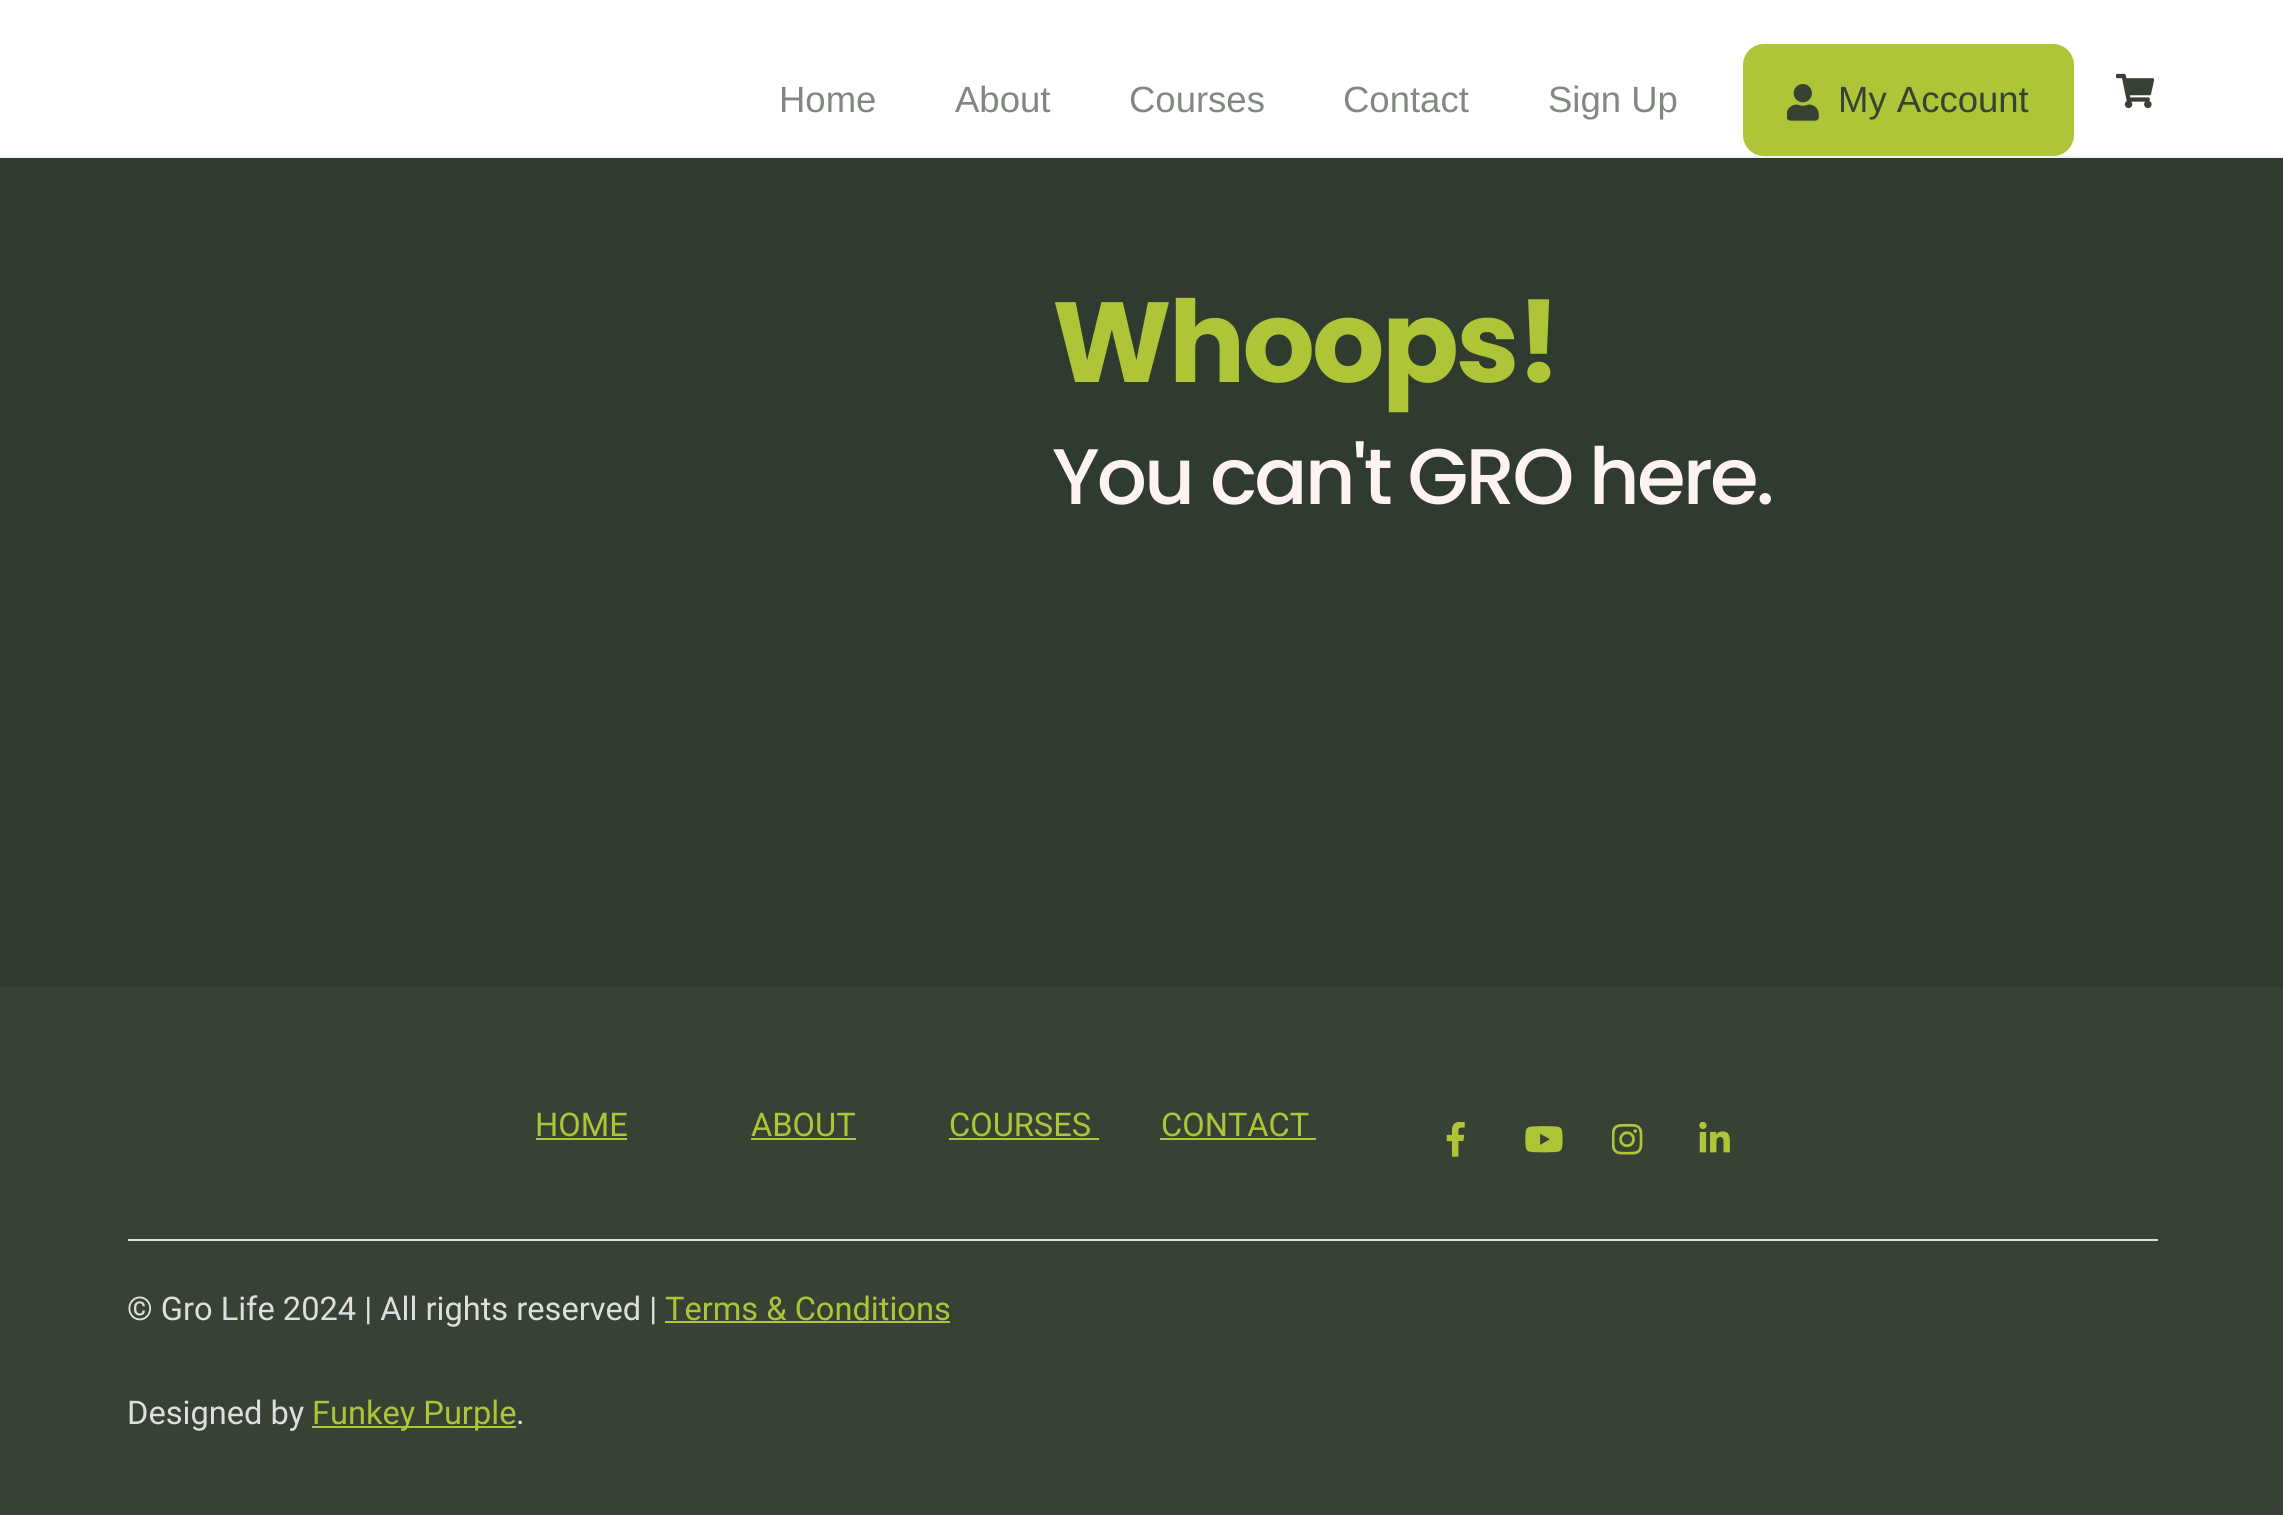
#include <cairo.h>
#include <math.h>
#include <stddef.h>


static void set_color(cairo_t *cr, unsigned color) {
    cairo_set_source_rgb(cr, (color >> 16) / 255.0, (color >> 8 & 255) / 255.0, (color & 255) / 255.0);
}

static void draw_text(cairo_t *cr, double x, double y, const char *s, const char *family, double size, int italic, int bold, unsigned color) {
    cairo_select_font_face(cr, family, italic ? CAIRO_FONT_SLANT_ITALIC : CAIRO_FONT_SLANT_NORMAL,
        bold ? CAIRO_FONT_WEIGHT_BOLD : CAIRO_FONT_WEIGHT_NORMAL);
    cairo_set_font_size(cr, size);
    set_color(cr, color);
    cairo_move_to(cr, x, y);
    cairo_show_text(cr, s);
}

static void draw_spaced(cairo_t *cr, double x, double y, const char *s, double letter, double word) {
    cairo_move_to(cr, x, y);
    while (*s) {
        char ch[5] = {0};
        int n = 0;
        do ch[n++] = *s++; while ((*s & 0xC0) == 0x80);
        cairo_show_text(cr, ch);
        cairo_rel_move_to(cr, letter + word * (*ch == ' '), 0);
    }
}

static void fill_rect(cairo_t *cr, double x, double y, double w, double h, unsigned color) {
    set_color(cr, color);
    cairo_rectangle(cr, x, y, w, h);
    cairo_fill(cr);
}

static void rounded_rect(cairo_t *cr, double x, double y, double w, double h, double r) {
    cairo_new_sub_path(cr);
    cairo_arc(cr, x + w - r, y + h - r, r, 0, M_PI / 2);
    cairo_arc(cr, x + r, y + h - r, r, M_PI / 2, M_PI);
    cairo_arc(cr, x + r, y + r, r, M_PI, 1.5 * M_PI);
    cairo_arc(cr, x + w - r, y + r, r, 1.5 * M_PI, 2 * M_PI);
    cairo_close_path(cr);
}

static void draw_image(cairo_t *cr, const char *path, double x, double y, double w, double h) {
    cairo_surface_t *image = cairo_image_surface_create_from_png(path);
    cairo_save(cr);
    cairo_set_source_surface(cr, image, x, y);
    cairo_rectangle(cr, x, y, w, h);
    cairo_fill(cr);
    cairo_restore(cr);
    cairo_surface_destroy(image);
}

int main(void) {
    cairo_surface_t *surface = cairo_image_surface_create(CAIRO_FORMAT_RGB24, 2283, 1515);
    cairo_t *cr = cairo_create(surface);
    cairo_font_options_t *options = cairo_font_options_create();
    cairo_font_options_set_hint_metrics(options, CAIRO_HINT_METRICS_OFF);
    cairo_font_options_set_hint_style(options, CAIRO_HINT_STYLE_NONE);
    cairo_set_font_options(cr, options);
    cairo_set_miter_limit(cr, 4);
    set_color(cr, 0x303B2F);
    cairo_paint(cr);
    fill_rect(cr, 0, 0, 2283, 156, 0xFFFFFF);
    fill_rect(cr, 0, 156, 2283, 2, 0xF2F2F2);
    draw_text(cr, 779, 112, "Home", "Liberation Sans", 36.5, 0, 0, 0x818880);
    draw_text(cr, 955, 112, "About", "Liberation Sans", 36.5, 0, 0, 0x818880);
    draw_text(cr, 1129, 112, "Courses", "Liberation Sans", 36.5, 0, 0, 0x818880);
    draw_text(cr, 1343, 112, "Contact", "Liberation Sans", 36.5, 0, 0, 0x818880);
    draw_text(cr, 1548, 112, "Sign Up", "Liberation Sans", 36.5, 0, 0, 0x818880);
    set_color(cr, 0xADC537);
    rounded_rect(cr, 1743, 44, 331, 112, 21);
    cairo_fill(cr);
    draw_image(cr, "assets/img1.png", 1787, 84, 32, 37);
    draw_text(cr, 1838, 112, "My Account", "Liberation Sans", 36.5, 0, 0, 0x374235);
    draw_image(cr, "assets/img2.png", 2116, 73, 38, 36);
    cairo_select_font_face(cr, "Poppins", CAIRO_FONT_SLANT_NORMAL, CAIRO_FONT_WEIGHT_BOLD);
    cairo_set_font_size(cr, 113.75);
    set_color(cr, 0xADC537);
    draw_spaced(cr, 1052, 382, "Whoops!", -2.9, 0);
    cairo_select_font_face(cr, "Poppins Medium", CAIRO_FONT_SLANT_NORMAL, CAIRO_FONT_WEIGHT_NORMAL);
    cairo_set_font_size(cr, 78.75);
    set_color(cr, 0xFFF2F2);
    draw_spaced(cr, 1052, 504, "You can't GRO here.", -2.9, 0);
    fill_rect(cr, 0, 987, 2283, 528, 0x374235);
    draw_text(cr, 535, 1136, "HOME", "Roboto", 32.6, 0, 0, 0xADC537);
    fill_rect(cr, 536, 1138, 91, 2, 0xADC537);
    draw_text(cr, 751, 1136, "ABOUT", "Roboto", 32.6, 0, 0, 0xADC537);
    fill_rect(cr, 751, 1138, 105, 2, 0xADC537);
    draw_text(cr, 949, 1136, "COURSES", "Roboto", 32.6, 0, 0, 0xADC537);
    fill_rect(cr, 949, 1138, 150, 2, 0xADC537);
    draw_text(cr, 1161, 1136, "CONTACT", "Roboto", 32.6, 0, 0, 0xADC537);
    fill_rect(cr, 1160, 1138, 156, 2, 0xADC537);
    draw_image(cr, "assets/img3.png", 1446, 1122, 19, 35);
    draw_image(cr, "assets/img4.png", 1525, 1126, 38, 27);
    draw_image(cr, "assets/img5.png", 1612, 1123, 31, 32);
    draw_image(cr, "assets/img6.png", 1699, 1122, 31, 31);
    fill_rect(cr, 128, 1239, 2030, 2, 0xDEDEDE);
    draw_text(cr, 127, 1320, "© Gro Life 2024 | All rights reserved |", "Roboto", 32.6, 0, 0, 0xDEDEDE);
    draw_text(cr, 665, 1320, "Terms & Conditions", "Roboto", 32.6, 0, 0, 0xADC537);
    fill_rect(cr, 665, 1321, 285, 2, 0xADC537);
    draw_text(cr, 127, 1424, "Designed by", "Roboto", 32.6, 0, 0, 0xDEDEDE);
    fill_rect(cr, 312, 1426, 204, 2, 0xADC537);
    draw_text(cr, 312, 1424, "Funkey Purple", "Roboto", 32.6, 0, 0, 0xADC537);
    draw_text(cr, 516, 1424, ".", "Roboto", 32.6, 0, 0, 0xDEDEDE);
    cairo_surface_write_to_png(surface, "output.png");
    cairo_font_options_destroy(options);
    cairo_destroy(cr);
    cairo_surface_destroy(surface);
    return 0;
}
